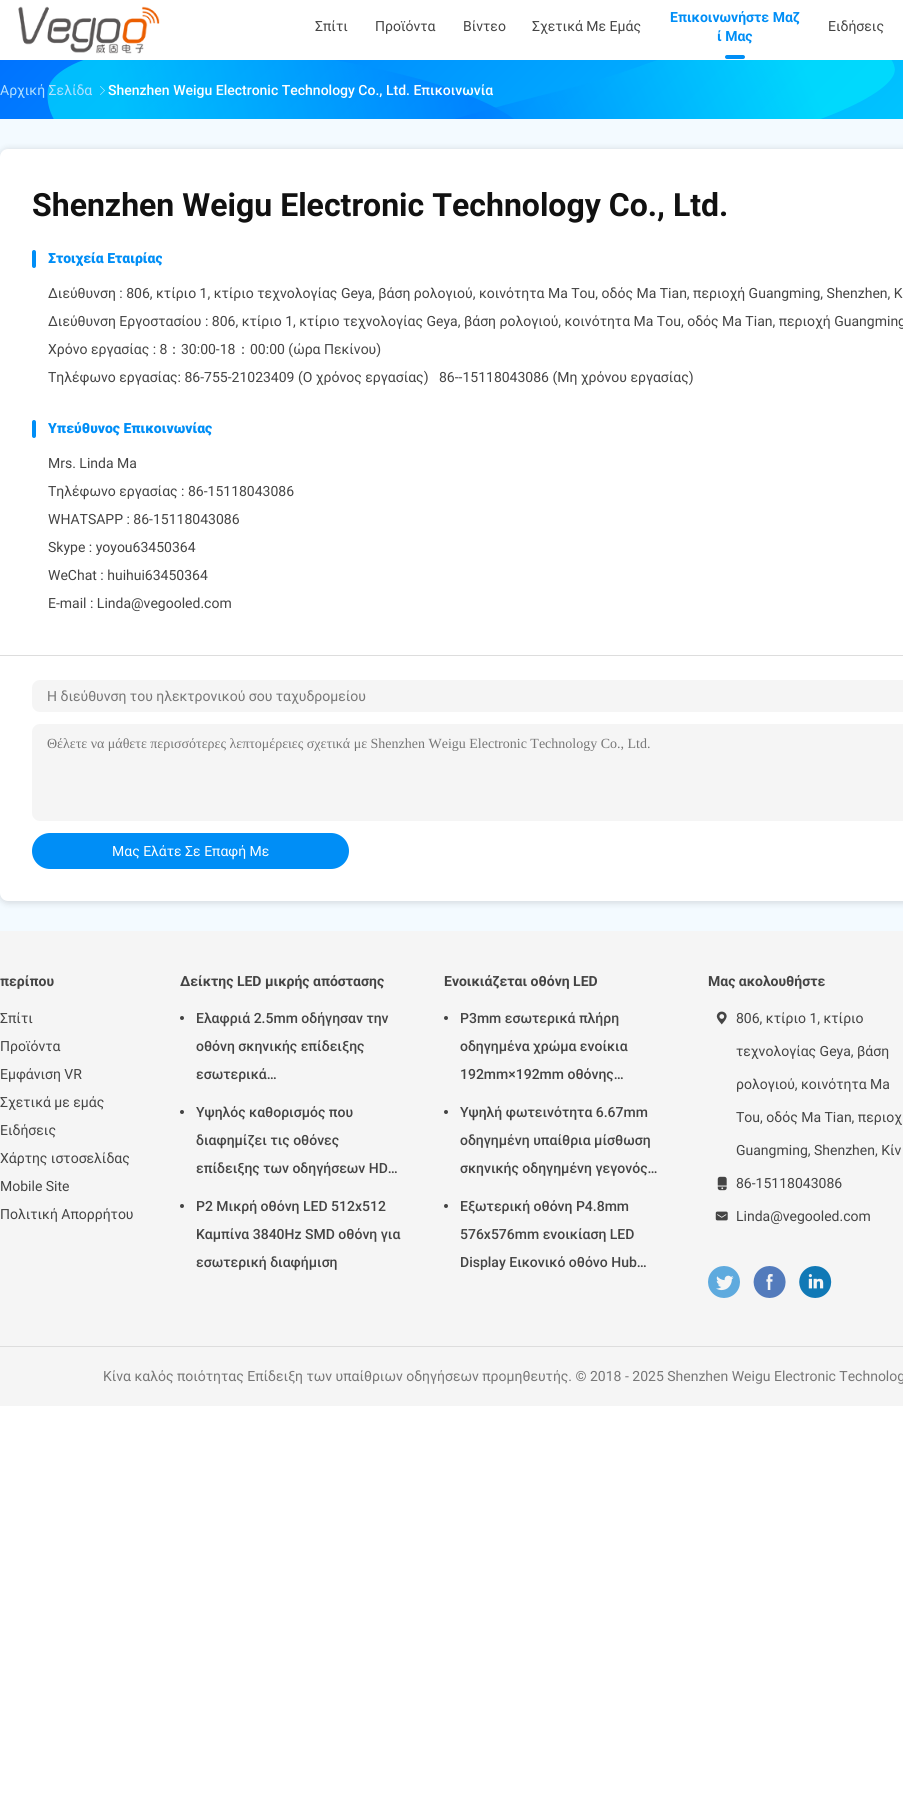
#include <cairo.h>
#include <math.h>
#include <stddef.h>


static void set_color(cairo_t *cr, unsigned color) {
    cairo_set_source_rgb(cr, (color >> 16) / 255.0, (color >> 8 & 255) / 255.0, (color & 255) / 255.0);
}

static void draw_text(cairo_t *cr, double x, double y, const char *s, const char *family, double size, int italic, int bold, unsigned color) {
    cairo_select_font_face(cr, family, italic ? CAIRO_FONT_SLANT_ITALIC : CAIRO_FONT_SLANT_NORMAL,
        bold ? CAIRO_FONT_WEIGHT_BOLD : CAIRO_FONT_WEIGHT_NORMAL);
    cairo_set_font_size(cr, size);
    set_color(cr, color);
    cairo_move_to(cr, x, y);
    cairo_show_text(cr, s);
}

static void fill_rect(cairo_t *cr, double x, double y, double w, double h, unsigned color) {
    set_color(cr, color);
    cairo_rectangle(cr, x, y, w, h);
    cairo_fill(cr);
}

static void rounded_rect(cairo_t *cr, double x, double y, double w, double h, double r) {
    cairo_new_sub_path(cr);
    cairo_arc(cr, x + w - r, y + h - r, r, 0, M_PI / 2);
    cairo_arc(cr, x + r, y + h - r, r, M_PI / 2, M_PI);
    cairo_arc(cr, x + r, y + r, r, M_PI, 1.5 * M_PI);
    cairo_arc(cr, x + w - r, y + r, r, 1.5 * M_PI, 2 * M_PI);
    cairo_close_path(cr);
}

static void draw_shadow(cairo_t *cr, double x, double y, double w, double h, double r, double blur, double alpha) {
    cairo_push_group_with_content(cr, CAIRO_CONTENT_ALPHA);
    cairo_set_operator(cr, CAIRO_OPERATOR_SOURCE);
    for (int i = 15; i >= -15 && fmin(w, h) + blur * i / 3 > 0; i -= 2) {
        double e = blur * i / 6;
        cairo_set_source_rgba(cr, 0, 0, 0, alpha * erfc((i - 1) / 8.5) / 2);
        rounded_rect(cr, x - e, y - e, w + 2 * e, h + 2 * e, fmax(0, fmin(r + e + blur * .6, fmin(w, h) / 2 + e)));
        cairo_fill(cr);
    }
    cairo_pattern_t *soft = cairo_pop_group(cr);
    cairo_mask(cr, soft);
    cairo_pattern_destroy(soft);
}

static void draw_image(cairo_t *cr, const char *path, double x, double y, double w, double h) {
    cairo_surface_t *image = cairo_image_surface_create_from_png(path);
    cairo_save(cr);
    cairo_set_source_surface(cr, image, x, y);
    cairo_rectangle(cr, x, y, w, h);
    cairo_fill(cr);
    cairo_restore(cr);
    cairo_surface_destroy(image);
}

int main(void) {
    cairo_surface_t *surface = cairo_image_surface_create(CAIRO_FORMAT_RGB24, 903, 1799);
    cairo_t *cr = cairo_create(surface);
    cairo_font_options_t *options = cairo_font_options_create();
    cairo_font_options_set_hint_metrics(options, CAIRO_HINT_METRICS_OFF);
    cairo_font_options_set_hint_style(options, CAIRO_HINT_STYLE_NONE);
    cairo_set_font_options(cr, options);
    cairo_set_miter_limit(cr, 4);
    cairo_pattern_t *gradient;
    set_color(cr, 0xFFFFFF);
    cairo_paint(cr);
    draw_image(cr, "assets/img1.png", 18, 6, 142, 48);
    draw_text(cr, 315, 31, "Σπίτι", "Roboto", 14, 0, 0, 0x444444);
    draw_text(cr, 375, 31, "Προϊόντα", "Roboto", 14, 0, 0, 0x444444);
    draw_text(cr, 463, 31, "Βίντεο", "Roboto", 14, 0, 0, 0x444444);
    draw_text(cr, 532, 31, "Σχετικά Με Εμάς", "Roboto", 14, 0, 0, 0x444444);
    draw_text(cr, 670, 22, "Επικοινωνήστε Μαζ", "Roboto", 14, 0, 1, 0x008EF6);
    draw_text(cr, 717, 41, "ί Μας", "Roboto", 14, 0, 1, 0x008EF6);
    rounded_rect(cr, 725, 55, 20, 4, 2);
    cairo_fill(cr);
    draw_text(cr, 828, 31, "Ειδήσεις", "Roboto", 14, 0, 0, 0x444444);
    gradient = cairo_pattern_create_linear(211, -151, 692, 330);
    cairo_pattern_add_color_stop_rgba(gradient, 0, 0, 0.451, 1, 1);
    cairo_pattern_add_color_stop_rgba(gradient, 1, 0, 0.769, 1, 1);
    cairo_set_source(cr, gradient);
    cairo_pattern_destroy(gradient);
    cairo_rectangle(cr, 0, 60, 903, 59);
    cairo_fill(cr);
    draw_image(cr, "assets/img2.png", 47, 60, 467, 59);
    draw_image(cr, "assets/img3.png", 455, 60, 440, 59);
    draw_text(cr, 0, 95, "Αρχική Σελίδα", "Roboto", 14, 0, 0, 0xB3E1FF);
    draw_image(cr, "assets/img4.png", 100, 86, 5, 9);
    draw_text(cr, 108, 95, "Shenzhen Weigu Electronic Technology Co., Ltd. Επικοινωνία", "Roboto Medium", 14, 0, 0, 0xFFFFFF);
    fill_rect(cr, 0, 119, 903, 812, 0xF3FAFF);
    set_color(cr, 0x000000);
    draw_shadow(cr, 0, 150, 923, 752, 8, 4, 0.16);
    set_color(cr, 0xFFFFFF);
    rounded_rect(cr, 0, 149, 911, 752, 8);
    cairo_fill(cr);
    draw_text(cr, 32, 216, "Shenzhen Weigu Electronic Technology Co., Ltd.", "Roboto", 32, 0, 1, 0x111111);
    set_color(cr, 0x008EF6);
    rounded_rect(cr, 32, 250, 4, 18, 2);
    cairo_fill(cr);
    draw_text(cr, 48, 263, "Στοιχεία Εταιρίας", "Roboto Black", 14, 0, 0, 0x008EF6);
    draw_text(cr, 48, 298, "Διεύθυνση : 806, κτίριο 1, κτίριο τεχνολογίας Geya, βάση ρολογιού, κοινότητα Ma Tou, οδός Ma Tian, περιοχή Guangming, Shenzhen, Κ", "Roboto", 14, 0, 0, 0x444444);
    draw_text(cr, 48, 326, "Διεύθυνση Εργοστασίου : 806, κτίριο 1, κτίριο τεχνολογίας Geya, βάση ρολογιού, κοινότητα Ma Tou, οδός Ma Tian, περιοχή Guangming", "Roboto", 14, 0, 0, 0x444444);
    draw_text(cr, 48, 354, "Χρόνο εργασίας : 8", "Roboto", 14, 0, 0, 0x444444);
    draw_text(cr, 167, 354, "：", "WenQuanYi Zen Hei Medium", 14, 0, 0, 0x444444);
    draw_text(cr, 181, 354, "30:00-18", "Roboto", 14, 0, 0, 0x444444);
    draw_text(cr, 236, 354, "：", "WenQuanYi Zen Hei Medium", 14, 0, 0, 0x444444);
    draw_text(cr, 250, 354, "00:00 (ώρα Πεκίνου)", "Roboto", 14, 0, 0, 0x444444);
    draw_text(cr, 48, 382, "Τηλέφωνο εργασίας: 86-755-21023409 (Ο χρόνος εργασίας)   86--15118043086 (Μη χρόνου εργασίας)", "Roboto", 14, 0, 0, 0x444444);
    set_color(cr, 0x008EF6);
    rounded_rect(cr, 32, 420, 4, 18, 2);
    cairo_fill(cr);
    draw_text(cr, 48, 433, "Υπεύθυνος Επικοινωνίας", "Roboto Black", 14, 0, 0, 0x008EF6);
    draw_text(cr, 48, 468, "Mrs. Linda Ma", "Roboto", 14, 0, 0, 0x444444);
    draw_text(cr, 48, 496, "Τηλέφωνο εργασίας : 86-15118043086", "Roboto", 14, 0, 0, 0x444444);
    draw_text(cr, 48, 524, "WHATSAPP : 86-15118043086", "Roboto", 14, 0, 0, 0x444444);
    draw_text(cr, 48, 552, "Skype : yoyou63450364", "Roboto", 14, 0, 0, 0x444444);
    draw_text(cr, 48, 580, "WeChat : huihui63450364", "Roboto", 14, 0, 0, 0x444444);
    draw_text(cr, 48, 608, "E-mail : Linda@vegooled.com", "Roboto", 14, 0, 0, 0x444444);
    fill_rect(cr, 0, 655, 903, 1, 0xDDDDDD);
    set_color(cr, 0xF5F5F5);
    rounded_rect(cr, 32, 680, 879, 32, 8);
    cairo_fill(cr);
    draw_text(cr, 47, 701, "Η διεύθυνση του ηλεκτρονικού σου ταχυδρομείου", "Roboto", 14, 0, 0, 0x777777);
    set_color(cr, 0xF5F5F5);
    rounded_rect(cr, 32, 724, 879, 97, 8);
    cairo_fill(cr);
    draw_text(cr, 47, 748, "Θέλετε να μάθετε περισσότερες λεπτομέρειες σχετικά με Shenzhen Weigu Electronic Technology Co., Ltd.", "Liberation Serif", 14, 0, 0, 0x777777);
    set_color(cr, 0x008EF6);
    rounded_rect(cr, 32, 833, 317, 36, 18);
    cairo_fill(cr);
    draw_text(cr, 112, 856, "Μας Ελάτε Σε Επαφή Με", "Roboto", 14, 0, 0, 0xFFFFFF);
    fill_rect(cr, 0, 931, 903, 475, 0xF5F5F5);
    draw_text(cr, 0, 986, "περίπου", "Roboto", 14, 0, 1, 0x444444);
    draw_text(cr, 0, 1023, "Σπίτι", "Roboto", 14, 0, 0, 0x444444);
    draw_text(cr, 0, 1051, "Προϊόντα", "Roboto", 14, 0, 0, 0x444444);
    draw_text(cr, 0, 1079, "Εμφάνιση VR", "Roboto", 14, 0, 0, 0x444444);
    draw_text(cr, 0, 1107, "Σχετικά με εμάς", "Roboto", 14, 0, 0, 0x444444);
    draw_text(cr, 0, 1135, "Ειδήσεις", "Roboto", 14, 0, 0, 0x444444);
    draw_text(cr, 0, 1163, "Χάρτης ιστοσελίδας", "Roboto", 14, 0, 0, 0x444444);
    draw_text(cr, 0, 1191, "Mobile Site", "Roboto", 14, 0, 0, 0x444444);
    draw_text(cr, 0, 1219, "Πολιτική Απορρήτου", "Roboto", 14, 0, 0, 0x444444);
    draw_text(cr, 180, 986, "Δείκτης LED μικρής απόστασης", "Roboto", 14, 0, 1, 0x444444);
    cairo_new_path(cr);
    cairo_arc(cr, 182, 1018, 2, 0, 2 * M_PI);
    cairo_fill(cr);
    draw_text(cr, 196, 1023, "Ελαφριά 2.5mm οδήγησαν την", "Roboto Medium", 14, 0, 0, 0x444444);
    draw_text(cr, 196, 1051, "οθόνη σκηνικής επίδειξης", "Roboto Medium", 14, 0, 0, 0x444444);
    draw_text(cr, 196, 1079, "εσωτερικά…", "Roboto Medium", 14, 0, 0, 0x444444);
    cairo_new_path(cr);
    cairo_arc(cr, 182, 1112, 2, 0, 2 * M_PI);
    cairo_fill(cr);
    draw_text(cr, 196, 1117, "Υψηλός καθορισμός που", "Roboto Medium", 14, 0, 0, 0x444444);
    draw_text(cr, 196, 1145, "διαφημίζει τις οθόνες", "Roboto Medium", 14, 0, 0, 0x444444);
    draw_text(cr, 196, 1173, "επίδειξης των οδηγήσεων HD…", "Roboto Medium", 14, 0, 0, 0x444444);
    cairo_new_path(cr);
    cairo_arc(cr, 182, 1206, 2, 0, 2 * M_PI);
    cairo_fill(cr);
    draw_text(cr, 196, 1211, "P2 Μικρή οθόνη LED 512x512", "Roboto Medium", 14, 0, 0, 0x444444);
    draw_text(cr, 196, 1239, "Καμπίνα 3840Hz SMD οθόνη για", "Roboto Medium", 14, 0, 0, 0x444444);
    draw_text(cr, 196, 1267, "εσωτερική διαφήμιση", "Roboto Medium", 14, 0, 0, 0x444444);
    draw_text(cr, 444, 986, "Ενοικιάζεται οθόνη LED", "Roboto", 14, 0, 1, 0x444444);
    cairo_new_path(cr);
    cairo_arc(cr, 446, 1018, 2, 0, 2 * M_PI);
    cairo_fill(cr);
    draw_text(cr, 460, 1023, "P3mm εσωτερικά πλήρη", "Roboto Medium", 14, 0, 0, 0x444444);
    draw_text(cr, 460, 1051, "οδηγημένα χρώμα ενοίκια", "Roboto Medium", 14, 0, 0, 0x444444);
    draw_text(cr, 460, 1079, "192mm×192mm οθόνης…", "Roboto Medium", 14, 0, 0, 0x444444);
    cairo_new_path(cr);
    cairo_arc(cr, 446, 1112, 2, 0, 2 * M_PI);
    cairo_fill(cr);
    draw_text(cr, 460, 1117, "Υψηλή φωτεινότητα 6.67mm", "Roboto Medium", 14, 0, 0, 0x444444);
    draw_text(cr, 460, 1145, "οδηγημένη υπαίθρια μίσθωση", "Roboto Medium", 14, 0, 0, 0x444444);
    draw_text(cr, 460, 1173, "σκηνικής οδηγημένη γεγονός…", "Roboto Medium", 14, 0, 0, 0x444444);
    cairo_new_path(cr);
    cairo_arc(cr, 446, 1206, 2, 0, 2 * M_PI);
    cairo_fill(cr);
    draw_text(cr, 460, 1211, "Εξωτερική οθόνη P4.8mm", "Roboto Medium", 14, 0, 0, 0x444444);
    draw_text(cr, 460, 1239, "576x576mm ενοικίαση LED", "Roboto Medium", 14, 0, 0, 0x444444);
    draw_text(cr, 460, 1267, "Display Εικονικό οθόνο Hub…", "Roboto Medium", 14, 0, 0, 0x444444);
    draw_text(cr, 708, 986, "Μας ακολουθήστε", "Roboto", 14, 0, 1, 0x444444);
    draw_image(cr, "assets/img5.png", 716, 1011, 11, 14);
    draw_text(cr, 736, 1023, "806, κτίριο 1, κτίριο", "Roboto", 14, 0, 0, 0x444444);
    draw_text(cr, 736, 1056, "τεχνολογίας Geya, βάση", "Roboto", 14, 0, 0, 0x444444);
    draw_text(cr, 736, 1089, "ρολογιού, κοινότητα Ma", "Roboto", 14, 0, 0, 0x444444);
    draw_text(cr, 736, 1122, "Tou, οδός Ma Tian, περιοχ", "Roboto", 14, 0, 0, 0x444444);
    draw_text(cr, 736, 1155, "Guangming, Shenzhen, Κίν", "Roboto", 14, 0, 0, 0x444444);
    draw_image(cr, "assets/img6.png", 717, 1176, 10, 15);
    draw_text(cr, 736, 1188, "86-15118043086", "Roboto", 14, 0, 0, 0x444444);
    draw_image(cr, "assets/img7.png", 715, 1211, 13, 10);
    draw_text(cr, 736, 1221, "Linda@vegooled.com", "Roboto", 14, 0, 0, 0x444444);
    draw_image(cr, "assets/img8.png", 708, 1266, 32, 32);
    draw_image(cr, "assets/img9.png", 753, 1266, 33, 32);
    draw_image(cr, "assets/img10.png", 799, 1266, 33, 32);
    fill_rect(cr, 0, 1346, 903, 1, 0xDDDDDD);
    draw_text(cr, 103, 1381, "Κίνα καλός ποιότητας Επίδειξη των υπαίθριων οδηγήσεων προμηθευτής. © 2018 - 2025 Shenzhen Weigu Electronic Technolog", "Roboto", 14, 0, 0, 0x777777);
    cairo_surface_write_to_png(surface, "output.png");
    cairo_font_options_destroy(options);
    cairo_destroy(cr);
    cairo_surface_destroy(surface);
    return 0;
}
